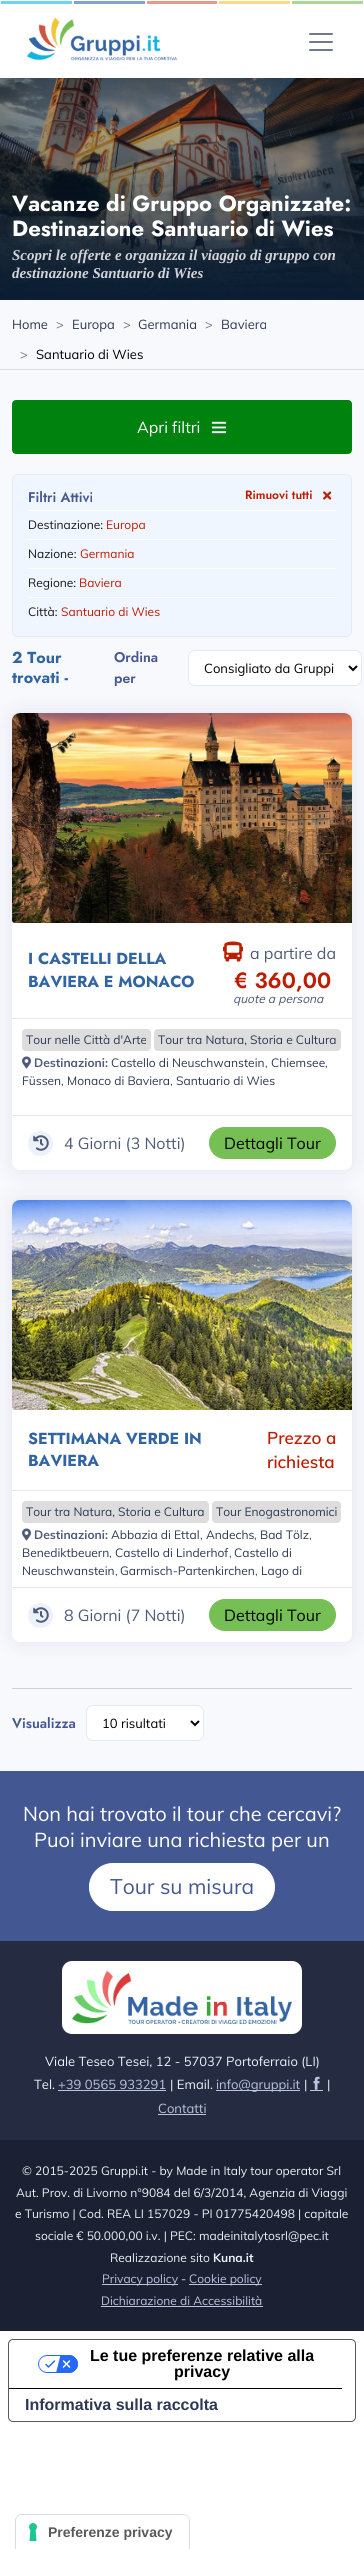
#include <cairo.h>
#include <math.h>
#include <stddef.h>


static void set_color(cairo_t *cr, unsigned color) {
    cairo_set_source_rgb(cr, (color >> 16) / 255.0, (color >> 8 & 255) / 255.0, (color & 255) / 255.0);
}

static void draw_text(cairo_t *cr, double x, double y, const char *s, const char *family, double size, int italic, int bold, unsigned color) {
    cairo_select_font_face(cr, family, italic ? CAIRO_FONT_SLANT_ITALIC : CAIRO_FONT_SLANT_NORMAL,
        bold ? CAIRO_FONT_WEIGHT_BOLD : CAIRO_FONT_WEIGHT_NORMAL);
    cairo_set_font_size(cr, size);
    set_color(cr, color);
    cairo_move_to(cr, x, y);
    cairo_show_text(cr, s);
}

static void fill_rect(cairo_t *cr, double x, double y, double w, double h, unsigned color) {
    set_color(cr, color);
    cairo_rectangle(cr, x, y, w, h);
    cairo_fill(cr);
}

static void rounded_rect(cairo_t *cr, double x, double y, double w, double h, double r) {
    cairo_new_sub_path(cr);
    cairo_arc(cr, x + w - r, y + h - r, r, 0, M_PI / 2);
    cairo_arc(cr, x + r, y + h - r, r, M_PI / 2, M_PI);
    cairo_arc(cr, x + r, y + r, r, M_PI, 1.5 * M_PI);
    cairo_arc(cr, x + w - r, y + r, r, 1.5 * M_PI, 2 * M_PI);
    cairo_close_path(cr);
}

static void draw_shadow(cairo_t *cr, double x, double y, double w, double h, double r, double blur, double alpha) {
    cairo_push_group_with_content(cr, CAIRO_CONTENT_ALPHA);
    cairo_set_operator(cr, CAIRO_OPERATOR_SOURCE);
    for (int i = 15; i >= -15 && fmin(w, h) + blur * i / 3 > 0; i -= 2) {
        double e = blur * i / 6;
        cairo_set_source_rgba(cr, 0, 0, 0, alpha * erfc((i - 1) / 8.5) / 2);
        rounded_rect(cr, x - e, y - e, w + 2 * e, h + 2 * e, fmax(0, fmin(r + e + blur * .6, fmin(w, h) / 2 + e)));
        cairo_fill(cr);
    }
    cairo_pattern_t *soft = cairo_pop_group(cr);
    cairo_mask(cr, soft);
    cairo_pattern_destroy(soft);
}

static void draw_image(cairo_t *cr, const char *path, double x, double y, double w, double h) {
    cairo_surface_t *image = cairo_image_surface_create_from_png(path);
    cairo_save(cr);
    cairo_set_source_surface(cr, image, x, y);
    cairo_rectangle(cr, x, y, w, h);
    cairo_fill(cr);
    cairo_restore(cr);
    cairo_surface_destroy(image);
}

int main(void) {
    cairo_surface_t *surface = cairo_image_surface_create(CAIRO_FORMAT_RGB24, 364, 2549);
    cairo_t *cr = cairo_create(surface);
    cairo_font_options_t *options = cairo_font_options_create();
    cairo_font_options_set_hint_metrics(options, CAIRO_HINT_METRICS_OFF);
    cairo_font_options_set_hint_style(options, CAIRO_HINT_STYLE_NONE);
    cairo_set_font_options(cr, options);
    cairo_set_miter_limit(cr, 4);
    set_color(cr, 0xFFFFFF);
    cairo_paint(cr);
    set_color(cr, 0x70D3EE);
    cairo_rectangle(cr, 0.5, 0.5, 72, 4);
    cairo_fill_preserve(cr);
    set_color(cr, 0xFFFFFF);
    cairo_set_line_width(cr, 1);
    cairo_stroke(cr);
    set_color(cr, 0x84A3C8);
    cairo_rectangle(cr, 73.5, 0.5, 72, 4);
    cairo_fill_preserve(cr);
    set_color(cr, 0xFFFFFF);
    cairo_stroke(cr);
    set_color(cr, 0xE79A8B);
    cairo_rectangle(cr, 146.5, 0.5, 71, 4);
    cairo_fill_preserve(cr);
    set_color(cr, 0xFFFFFF);
    cairo_stroke(cr);
    set_color(cr, 0xF6DC88);
    cairo_rectangle(cr, 218.5, 0.5, 72, 4);
    cairo_fill_preserve(cr);
    set_color(cr, 0xFFFFFF);
    cairo_stroke(cr);
    set_color(cr, 0xACD897);
    cairo_rectangle(cr, 291.5, 0.5, 72, 4);
    cairo_fill_preserve(cr);
    set_color(cr, 0xFFFFFF);
    cairo_stroke(cr);
    draw_image(cr, "assets/img1.png", 27, 17, 150, 44);
    set_color(cr, 0x70798B);
    rounded_rect(cr, 309, 49, 24, 2, 1);
    cairo_fill(cr);
    rounded_rect(cr, 309, 41, 24, 2, 1);
    cairo_fill(cr);
    rounded_rect(cr, 309, 33, 24, 2, 1);
    cairo_fill(cr);
    draw_image(cr, "assets/img2.png", 0, 78, 364, 222);
    draw_text(cr, 12, 211, "Vacanze di Gruppo Organizzate:", "Jost", 22, 0, 1, 0xFFFFFF);
    draw_text(cr, 12, 236, "Destinazione Santuario di Wies", "Jost", 22, 0, 1, 0xFFFFFF);
    draw_text(cr, 12, 260, "Scopri le offerte e organizza il viaggio di gruppo con", "Liberation Serif", 15, 1, 1, 0xD2D4D7);
    draw_text(cr, 12, 278, "destinazione Santuario di Wies", "Liberation Serif", 15, 1, 1, 0xD2D4D7);
    fill_rect(cr, 0, 300, 364, 69, 0xF7F9FC);
    fill_rect(cr, 0, 369, 364, 1, 0xDDDDDD);
    draw_text(cr, 12, 329, "Home", "Muli", 13, 0, 0, 0x2D3954);
    draw_text(cr, 56, 329, ">", "Muli", 13, 0, 0, 0x6C757D);
    draw_text(cr, 72, 329, "Europa", "Muli", 13, 0, 0, 0x2D3954);
    draw_text(cr, 123, 329, ">", "Muli", 13, 0, 0, 0x6C757D);
    draw_text(cr, 138, 329, "Germania", "Muli", 13, 0, 0, 0x2D3954);
    draw_text(cr, 205, 329, ">", "Muli", 13, 0, 0, 0x6C757D);
    draw_text(cr, 221, 329, "Baviera", "Muli", 13, 0, 0, 0x2D3954);
    draw_text(cr, 20, 359, ">", "Muli", 13, 0, 0, 0x6C757D);
    draw_text(cr, 36, 359, "Santuario di Wies", "Muli", 13, 0, 0, 0x000000);
    fill_rect(cr, 0, 370, 364, 1401, 0xF7F9FC);
    set_color(cr, 0x00820F);
    rounded_rect(cr, 13, 401, 338, 52, 3);
    cairo_fill_preserve(cr);
    cairo_set_line_width(cr, 2);
    cairo_stroke(cr);
    draw_text(cr, 137, 433, "Apri filtri", "Muli", 16, 0, 0, 0xFFFFFF);
    draw_image(cr, "assets/img3.png", 211, 421, 16, 13);
    set_color(cr, 0xF0F6FF);
    rounded_rect(cr, 12.5, 474.5, 339, 162, 5.5);
    cairo_fill_preserve(cr);
    set_color(cr, 0xE6EAF1);
    cairo_set_line_width(cr, 1);
    cairo_stroke(cr);
    draw_text(cr, 28, 502, "Filtri Attivi", "Jost SemiBold", 14, 0, 0, 0x455892);
    draw_text(cr, 245, 499, "Rimuovi tutti", "Jost SemiBold", 12, 0, 0, 0xBF1C00);
    draw_image(cr, "assets/img4.png", 323, 491, 9, 9);
    fill_rect(cr, 28, 510, 308, 1, 0xFFFFFF);
    draw_text(cr, 28, 529, "Destinazione:", "Muli", 12, 0, 0, 0x171717);
    draw_text(cr, 106, 529, "Europa", "Muli", 12, 0, 0, 0xBF1C00);
    fill_rect(cr, 28, 539, 308, 1, 0xFFFFFF);
    draw_text(cr, 28, 558, "Nazione:", "Muli", 12, 0, 0, 0x171717);
    draw_text(cr, 80, 558, "Germania", "Muli", 12, 0, 0, 0xBF1C00);
    fill_rect(cr, 28, 568, 308, 1, 0xFFFFFF);
    draw_text(cr, 28, 587, "Regione:", "Muli", 12, 0, 0, 0x171717);
    draw_text(cr, 79, 587, "Baviera", "Muli", 12, 0, 0, 0xBF1C00);
    fill_rect(cr, 28, 597, 308, 1, 0xFFFFFF);
    draw_text(cr, 28, 616, "Città:", "Muli", 12, 0, 0, 0x171717);
    draw_text(cr, 61, 616, "Santuario di Wies", "Muli", 12, 0, 0, 0xBF1C00);
    draw_text(cr, 12, 663, "2 Tour", "Jost", 16, 0, 1, 0x3064A3);
    draw_text(cr, 12, 683, "trovati -", "Jost", 16, 0, 1, 0x3064A3);
    draw_text(cr, 114, 662, "Ordina", "Jost SemiBold", 14, 0, 0, 0x455892);
    draw_text(cr, 114, 683, "per", "Jost SemiBold", 14, 0, 0, 0x455892);
    set_color(cr, 0xFFFFFF);
    rounded_rect(cr, 188.5, 650.5, 173, 35, 6.5);
    cairo_fill_preserve(cr);
    set_color(cr, 0xE0ECF5);
    cairo_stroke(cr);
    cairo_new_path(cr);
    cairo_move_to(cr, 349, 666);
    cairo_line_to(cr, 353, 670);
    cairo_line_to(cr, 357, 666);
    set_color(cr, 0x000000);
    cairo_set_line_width(cr, 2);
    cairo_stroke(cr);
    draw_text(cr, 204, 673, "Consigliato da Gruppi", "Muli", 13, 0, 0, 0x000000);
    set_color(cr, 0x3E1C83);
    draw_shadow(cr, 12, 713, 340, 457, 8, 10, 0.1);
    set_color(cr, 0xFFFFFF);
    rounded_rect(cr, 12, 713, 340, 457, 8);
    cairo_fill(cr);
    draw_image(cr, "assets/img5.png", 12, 713, 340, 210);
    fill_rect(cr, 12, 1018, 340, 1, 0xE5E9EC);
    draw_text(cr, 28, 964, "I CASTELLI DELLA", "Jost", 16, 0, 1, 0x3064A3);
    draw_text(cr, 28, 987, "BAVIERA E MONACO", "Jost", 16, 0, 1, 0x3064A3);
    draw_image(cr, "assets/img6.png", 223, 941, 20, 21);
    draw_text(cr, 250, 959, "a partire da", "Muli", 16, 0, 0, 0x4E5C79);
    draw_text(cr, 234, 988, "€ 360,00", "Jost SemiBold", 22, 0, 0, 0xBF1C00);
    draw_text(cr, 233, 1003, "quote a persona", "Muli", 12, 1, 0, 0x4E5C79);
    set_color(cr, 0xDDDDDD);
    rounded_rect(cr, 22, 1029, 129, 22, 4);
    cairo_fill(cr);
    draw_text(cr, 26, 1044, "Tour nelle Città d'Arte", "Muli", 12, 0, 0, 0x2D3954);
    set_color(cr, 0xDDDDDD);
    rounded_rect(cr, 154, 1029, 187, 22, 4);
    cairo_fill(cr);
    draw_text(cr, 158, 1044, "Tour tra Natura, Storia e Cultura", "Muli", 12, 0, 0, 0x2D3954);
    draw_image(cr, "assets/img7.png", 22, 1056, 9, 13);
    draw_text(cr, 34, 1067, "Destinazioni:", "Muli", 12, 0, 1, 0x4E5C79);
    draw_text(cr, 111, 1067, "Castello di Neuschwanstein", "Muli", 12, 0, 0, 0x2D3954);
    draw_text(cr, 265, 1067, ",", "Muli", 12, 0, 0, 0x4E5C79);
    draw_text(cr, 271, 1067, "Chiemsee", "Muli", 12, 0, 0, 0x2D3954);
    draw_text(cr, 325, 1067, ",", "Muli", 12, 0, 0, 0x4E5C79);
    draw_text(cr, 22, 1085, "Füssen", "Muli", 12, 0, 0, 0x2D3954);
    draw_text(cr, 61, 1085, ",", "Muli", 12, 0, 0, 0x4E5C79);
    draw_text(cr, 67, 1085, "Monaco di Baviera", "Muli", 12, 0, 0, 0x2D3954);
    draw_text(cr, 170, 1085, ",", "Muli", 12, 0, 0, 0x4E5C79);
    draw_text(cr, 176, 1085, "Santuario di Wies", "Muli", 12, 0, 0, 0x2D3954);
    fill_rect(cr, 12, 1115, 340, 1, 0xE5E9EC);
    set_color(cr, 0xEDF1F9);
    cairo_new_path(cr);
    cairo_arc(cr, 40.5, 1143.5, 12.5, 0, 2 * M_PI);
    cairo_fill(cr);
    draw_image(cr, "assets/img8.png", 33, 1135, 16, 16);
    draw_text(cr, 64, 1149, "4 Giorni (3 Notti)", "Muli", 16, 0, 0, 0x4E5C79);
    set_color(cr, 0x76BF54);
    rounded_rect(cr, 209.5, 1127.5, 126, 31, 15.5);
    cairo_fill_preserve(cr);
    cairo_set_line_width(cr, 1);
    cairo_stroke(cr);
    draw_text(cr, 224, 1149, "Dettagli Tour", "Muli", 16, 0, 0, 0x000000);
    set_color(cr, 0x3E1C83);
    draw_shadow(cr, 12, 1200, 340, 442, 8, 10, 0.1);
    set_color(cr, 0xFFFFFF);
    rounded_rect(cr, 12, 1200, 340, 442, 8);
    cairo_fill(cr);
    draw_image(cr, "assets/img9.png", 12, 1200, 340, 210);
    fill_rect(cr, 12, 1490, 340, 1, 0xE5E9EC);
    draw_text(cr, 28, 1444, "SETTIMANA VERDE IN", "Jost", 16, 0, 1, 0x3064A3);
    draw_text(cr, 28, 1466, "BAVIERA", "Jost", 16, 0, 1, 0x3064A3);
    draw_text(cr, 267, 1444, "Prezzo a", "Muli SemiBold", 17, 0, 0, 0xBF1C00);
    draw_text(cr, 267, 1468, "richiesta", "Muli SemiBold", 17, 0, 0, 0xBF1C00);
    set_color(cr, 0xDDDDDD);
    rounded_rect(cr, 22, 1501, 187, 22, 4);
    cairo_fill(cr);
    draw_text(cr, 26, 1516, "Tour tra Natura, Storia e Cultura", "Muli", 12, 0, 0, 0x2D3954);
    set_color(cr, 0xDDDDDD);
    rounded_rect(cr, 212, 1501, 129, 22, 4);
    cairo_fill(cr);
    draw_text(cr, 216, 1516, "Tour Enogastronomici", "Muli", 12, 0, 0, 0x2D3954);
    draw_image(cr, "assets/img7.png", 22, 1528, 9, 13);
    draw_text(cr, 34, 1539, "Destinazioni:", "Muli", 12, 0, 1, 0x4E5C79);
    draw_text(cr, 111, 1539, "Abbazia di Ettal", "Muli", 12, 0, 0, 0x2D3954);
    draw_text(cr, 200, 1539, ",", "Muli", 12, 0, 0, 0x4E5C79);
    draw_text(cr, 206, 1539, "Andechs", "Muli", 12, 0, 0, 0x2D3954);
    draw_text(cr, 254, 1539, ",", "Muli", 12, 0, 0, 0x4E5C79);
    draw_text(cr, 260, 1539, "Bad Tölz", "Muli", 12, 0, 0, 0x2D3954);
    draw_text(cr, 309, 1539, ",", "Muli", 12, 0, 0, 0x4E5C79);
    draw_text(cr, 22, 1557, "Benediktbeuern", "Muli", 12, 0, 0, 0x2D3954);
    draw_text(cr, 109, 1557, ",", "Muli", 12, 0, 0, 0x4E5C79);
    draw_text(cr, 115, 1557, "Castello di Linderhof", "Muli", 12, 0, 0, 0x2D3954);
    draw_text(cr, 229, 1557, ",", "Muli", 12, 0, 0, 0x4E5C79);
    draw_text(cr, 234, 1557, "Castello di", "Muli", 12, 0, 0, 0x2D3954);
    draw_text(cr, 22, 1575, "Neuschwanstein", "Muli", 12, 0, 0, 0x2D3954);
    draw_text(cr, 115, 1575, ",", "Muli", 12, 0, 0, 0x4E5C79);
    draw_text(cr, 120, 1575, "Garmisch-Partenkirchen", "Muli", 12, 0, 0, 0x2D3954);
    draw_text(cr, 255, 1575, ",", "Muli", 12, 0, 0, 0x4E5C79);
    draw_text(cr, 261, 1575, "Lago di", "Muli", 12, 0, 0, 0x2D3954);
    fill_rect(cr, 12, 1587, 340, 1, 0xE5E9EC);
    set_color(cr, 0xEDF1F9);
    cairo_new_path(cr);
    cairo_arc(cr, 40.5, 1615.5, 12.5, 0, 2 * M_PI);
    cairo_fill(cr);
    draw_image(cr, "assets/img8.png", 33, 1607, 16, 16);
    draw_text(cr, 64, 1621, "8 Giorni (7 Notti)", "Muli", 16, 0, 0, 0x4E5C79);
    set_color(cr, 0x76BF54);
    rounded_rect(cr, 209.5, 1599.5, 126, 31, 15.5);
    cairo_fill_preserve(cr);
    cairo_stroke(cr);
    draw_text(cr, 224, 1621, "Dettagli Tour", "Muli", 16, 0, 0, 0x000000);
    fill_rect(cr, 12, 1688, 340, 1, 0xCDD2DB);
    draw_text(cr, 12, 1728, "Visualizza", "Jost SemiBold", 14, 0, 0, 0x455892);
    set_color(cr, 0xFFFFFF);
    rounded_rect(cr, 86.5, 1705.5, 117, 35, 6.5);
    cairo_fill_preserve(cr);
    set_color(cr, 0xE0ECF5);
    cairo_stroke(cr);
    cairo_new_path(cr);
    cairo_move_to(cr, 191, 1721);
    cairo_line_to(cr, 195, 1725);
    cairo_line_to(cr, 199, 1721);
    set_color(cr, 0x000000);
    cairo_set_line_width(cr, 2);
    cairo_stroke(cr);
    draw_text(cr, 102, 1728, "10 risultati", "Muli", 13, 0, 0, 0x000000);
    fill_rect(cr, 0, 1771, 364, 170, 0x435793);
    draw_text(cr, 23, 1821, "Non hai trovato il tour che cercavi?", "Muli", 20, 0, 0, 0xFFFFFF);
    draw_text(cr, 34, 1847, "Puoi inviare una richiesta per un", "Muli", 20, 0, 0, 0xFFFFFF);
    rounded_rect(cr, 89.5, 1863.5, 185, 47, 23.5);
    cairo_fill_preserve(cr);
    cairo_set_line_width(cr, 1);
    cairo_stroke(cr);
    draw_text(cr, 110, 1894, "Tour su misura", "Muli", 21, 0, 0, 0x455892);
    fill_rect(cr, 0, 1941, 364, 199, 0x252C41);
    set_color(cr, 0xFFFFFF);
    rounded_rect(cr, 62, 1961, 240, 73, 10);
    cairo_fill(cr);
    draw_image(cr, "assets/img10.png", 72, 1971, 220, 53);
    draw_text(cr, 45, 2066, "Viale Teseo Tesei, 12 - 57037 Portoferraio (LI)", "Muli", 13, 0, 0, 0xEDF0F6);
    draw_text(cr, 34, 2089, "Tel.", "Muli", 13, 0, 0, 0xEDF0F6);
    draw_text(cr, 58, 2089, "+39 0565 933291", "Muli", 13, 0, 0, 0xBBC3DF);
    fill_rect(cr, 58, 2090, 108, 1, 0xBBC3DF);
    draw_text(cr, 170, 2089, "| Email.", "Muli", 13, 0, 0, 0xEDF0F6);
    fill_rect(cr, 216, 2090, 84, 1, 0xBBC3DF);
    draw_text(cr, 216, 2089, "info@gruppi.it", "Muli", 13, 0, 0, 0xBBC3DF);
    draw_text(cr, 304, 2089, "|", "Muli", 13, 0, 0, 0xEDF0F6);
    draw_image(cr, "assets/img11.png", 313, 2076, 7, 14);
    draw_text(cr, 327, 2089, "|", "Muli", 13, 0, 0, 0xEDF0F6);
    fill_rect(cr, 310, 2090, 13, 1, 0xBBC3DF);
    draw_text(cr, 158, 2113, "Contatti", "Muli", 13, 0, 0, 0xBBC3DF);
    fill_rect(cr, 158, 2114, 48, 1, 0xBBC3DF);
    fill_rect(cr, 0, 2140, 364, 191, 0x1B2132);
    draw_text(cr, 22, 2175, "© 2015-2025 Gruppi.it - by Made in Italy tour operator Srl", "Muli", 12, 0, 0, 0xEDF0F6);
    draw_text(cr, 16, 2197, "Aut. Prov. di Livorno n°9084 del 6/3/2014, Agenzia di Viaggi", "Muli", 12, 0, 0, 0xEDF0F6);
    draw_text(cr, 15, 2218, "e Turismo | Cod. REA LI 157029 - PI 01775420498 | capitale", "Muli", 12, 0, 0, 0xEDF0F6);
    draw_text(cr, 35, 2240, "sociale € 50.000,00 i.v. | PEC: madeinitalytosrl@pec.it", "Muli", 12, 0, 0, 0xEDF0F6);
    draw_text(cr, 110, 2262, "Realizzazione sito", "Muli", 12, 0, 0, 0xEDF0F6);
    draw_text(cr, 213, 2262, "Kuna.it", "Muli", 12, 0, 1, 0xEDF0F6);
    fill_rect(cr, 102, 2284, 76, 1, 0xBBC3DF);
    draw_text(cr, 102, 2283, "Privacy policy", "Muli", 12, 0, 0, 0xBBC3DF);
    draw_text(cr, 181, 2283, "-", "Muli", 12, 0, 0, 0xEDF0F6);
    fill_rect(cr, 189, 2284, 73, 1, 0xBBC3DF);
    draw_text(cr, 189, 2283, "Cookie policy", "Muli", 12, 0, 0, 0xBBC3DF);
    draw_text(cr, 101, 2305, "Dichiarazione di Accessibilità", "Muli", 12, 0, 0, 0xBBC3DF);
    fill_rect(cr, 101, 2306, 162, 1, 0xBBC3DF);
    rounded_rect(cr, 8.5, 2339.5, 347, 82, 4.5);
    set_color(cr, 0x595959);
    cairo_stroke(cr);
    fill_rect(cr, 9, 2388, 333, 1, 0x000000);
    draw_image(cr, "assets/img12.png", 38, 2355, 40, 18);
    draw_text(cr, 90, 2361, "Le tue preferenze relative alla", "Liberation Sans", 16, 0, 1, 0x000000);
    draw_text(cr, 174, 2377, "privacy", "Liberation Sans", 16, 0, 1, 0x000000);
    draw_text(cr, 25, 2410, "Informativa sulla raccolta", "Liberation Sans", 16, 0, 1, 0x2D3954);
    cairo_new_path(cr);
    cairo_move_to(cr, 22, 2514.5);
    cairo_line_to(cr, 183, 2514.5);
    cairo_curve_to(cr, 186.5, 2514.5, 189.5, 2517.5, 189.5, 2521);
    cairo_line_to(cr, 189.5, 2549.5);
    cairo_line_to(cr, 15.5, 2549.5);
    cairo_line_to(cr, 15.5, 2521);
    cairo_curve_to(cr, 15.5, 2517.5, 18.5, 2514.5, 22, 2514.5);
    cairo_close_path(cr);
    set_color(cr, 0xD9D9D9);
    cairo_stroke(cr);
    set_color(cr, 0xFFFFFF);
    cairo_new_path(cr);
    cairo_move_to(cr, 22, 2515);
    cairo_line_to(cr, 183, 2515);
    cairo_curve_to(cr, 186.5, 2515, 189, 2517.5, 189, 2521);
    cairo_line_to(cr, 189, 2549);
    cairo_line_to(cr, 16, 2549);
    cairo_line_to(cr, 16, 2521);
    cairo_curve_to(cr, 16, 2517.5, 18.5, 2515, 22, 2515);
    cairo_close_path(cr);
    cairo_fill(cr);
    draw_image(cr, "assets/img13.png", 29, 2523, 8, 18);
    draw_text(cr, 48, 2537, "Preferenze privacy", "Liberation Sans", 14, 0, 1, 0x595959);
    cairo_surface_write_to_png(surface, "output.png");
    cairo_font_options_destroy(options);
    cairo_destroy(cr);
    cairo_surface_destroy(surface);
    return 0;
}
